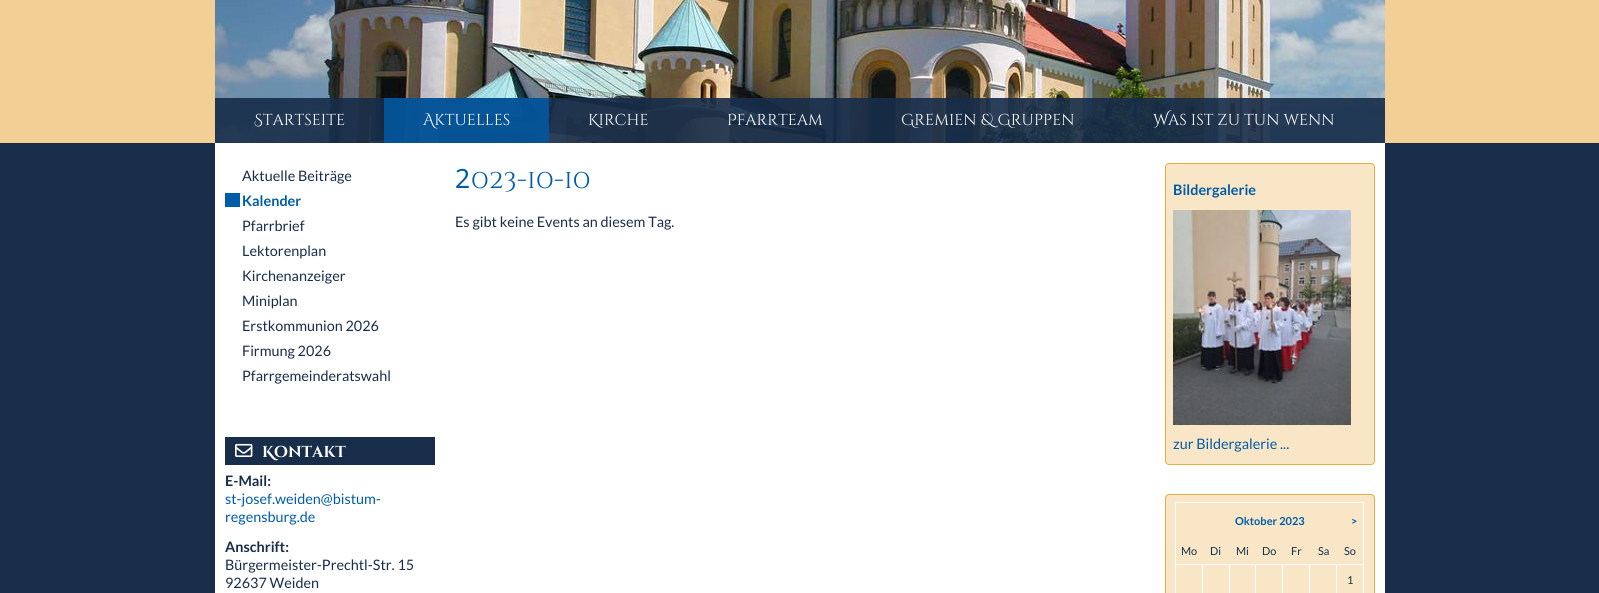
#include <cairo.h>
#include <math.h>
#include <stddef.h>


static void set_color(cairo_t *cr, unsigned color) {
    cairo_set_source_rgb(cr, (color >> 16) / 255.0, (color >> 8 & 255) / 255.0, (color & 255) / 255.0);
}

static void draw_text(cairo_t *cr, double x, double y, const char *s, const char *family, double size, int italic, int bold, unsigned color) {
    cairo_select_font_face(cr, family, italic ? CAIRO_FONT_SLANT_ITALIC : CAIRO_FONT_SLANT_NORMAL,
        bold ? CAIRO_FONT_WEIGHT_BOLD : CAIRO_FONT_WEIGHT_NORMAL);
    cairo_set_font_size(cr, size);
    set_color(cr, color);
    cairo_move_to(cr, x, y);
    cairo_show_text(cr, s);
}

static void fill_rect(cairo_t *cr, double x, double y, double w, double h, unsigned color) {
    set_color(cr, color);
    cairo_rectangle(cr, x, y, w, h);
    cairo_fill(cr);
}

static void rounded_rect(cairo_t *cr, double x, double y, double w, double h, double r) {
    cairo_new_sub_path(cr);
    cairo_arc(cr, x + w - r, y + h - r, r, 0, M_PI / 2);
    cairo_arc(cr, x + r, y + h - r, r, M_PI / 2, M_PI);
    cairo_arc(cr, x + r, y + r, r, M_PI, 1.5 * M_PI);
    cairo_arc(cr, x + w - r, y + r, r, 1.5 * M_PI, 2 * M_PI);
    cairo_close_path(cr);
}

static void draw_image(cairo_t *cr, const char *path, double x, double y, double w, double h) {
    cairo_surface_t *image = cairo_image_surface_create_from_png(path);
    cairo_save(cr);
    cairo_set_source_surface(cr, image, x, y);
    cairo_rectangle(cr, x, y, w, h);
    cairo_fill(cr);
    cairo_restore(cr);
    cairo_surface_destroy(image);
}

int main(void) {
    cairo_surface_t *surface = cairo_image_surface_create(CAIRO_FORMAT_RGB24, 1599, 593);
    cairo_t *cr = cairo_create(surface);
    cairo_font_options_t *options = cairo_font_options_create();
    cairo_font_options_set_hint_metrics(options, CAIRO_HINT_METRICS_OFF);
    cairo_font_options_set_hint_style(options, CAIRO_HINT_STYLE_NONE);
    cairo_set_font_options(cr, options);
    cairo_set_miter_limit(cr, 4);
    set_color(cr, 0x172D4A);
    cairo_paint(cr);
    fill_rect(cr, 0, 0, 1599, 143, 0xF2CF94);
    draw_image(cr, "assets/img1.png", 215, 0, 1170, 143);
    cairo_set_source_rgba(cr, 0.09, 0.176, 0.29, 0.9);
    cairo_rectangle(cr, 215, 98, 1170, 45);
    cairo_fill(cr);
    draw_text(cr, 254, 125, "Startseite", "Cinzel Decorative", 15.8, 0, 0, 0xFFFFFF);
    cairo_set_source_rgba(cr, 0, 0.361, 0.663, 0.8);
    cairo_rectangle(cr, 384, 98, 165, 45);
    cairo_fill(cr);
    draw_text(cr, 423, 125, "Aktuelles", "Cinzel Decorative", 15.8, 0, 0, 0xFFFFFF);
    draw_text(cr, 588, 125, "Kirche", "Cinzel Decorative", 15.8, 0, 0, 0xFFFFFF);
    draw_text(cr, 727, 125, "Pfarrteam", "Cinzel Decorative", 15.8, 0, 0, 0xFFFFFF);
    draw_text(cr, 901, 125, "Gremien & Gruppen", "Cinzel Decorative", 15.8, 0, 0, 0xFFFFFF);
    draw_text(cr, 1153, 125, "Was ist zu tun wenn", "Cinzel Decorative", 15.8, 0, 0, 0xFFFFFF);
    fill_rect(cr, 215, 143, 1170, 450, 0xFFFFFF);
    draw_text(cr, 242, 181, "Aktuelle Beiträge", "Lato", 14.4, 0, 0, 0x172D4A);
    fill_rect(cr, 225, 193, 15, 14, 0x005CA9);
    draw_text(cr, 242, 206, "Kalender", "Lato", 14.4, 0, 1, 0x005CA9);
    draw_text(cr, 242, 231, "Pfarrbrief", "Lato", 14.4, 0, 0, 0x172D4A);
    draw_text(cr, 242, 256, "Lektorenplan", "Lato", 14.4, 0, 0, 0x172D4A);
    draw_text(cr, 242, 281, "Kirchenanzeiger", "Lato", 14.4, 0, 0, 0x172D4A);
    draw_text(cr, 242, 306, "Miniplan", "Lato", 14.4, 0, 0, 0x172D4A);
    draw_text(cr, 242, 331, "Erstkommunion 2026", "Lato", 14.4, 0, 0, 0x172D4A);
    draw_text(cr, 242, 356, "Firmung 2026", "Lato", 14.4, 0, 0, 0x172D4A);
    draw_text(cr, 242, 381, "Pfarrgemeinderatswahl", "Lato", 14.4, 0, 0, 0x172D4A);
    fill_rect(cr, 225, 437, 210, 28, 0x172D4A);
    draw_image(cr, "assets/img2.png", 235, 443, 18, 14);
    draw_text(cr, 262, 457, "Kontakt", "Cinzel Decorative", 15.8, 0, 1, 0xFFFFFF);
    draw_text(cr, 225, 486, "E-Mail:", "Lato", 14.4, 0, 1, 0x172D4A);
    draw_text(cr, 225, 504, "st-josef.weiden@bistum-", "Lato", 14.4, 0, 0, 0x005CA9);
    draw_text(cr, 225, 522, "regensburg.de", "Lato", 14.4, 0, 0, 0x005CA9);
    draw_text(cr, 225, 552, "Anschrift:", "Lato", 14.4, 0, 1, 0x172D4A);
    draw_text(cr, 225, 570, "Bürgermeister-Prechtl-Str. 15", "Lato", 14.4, 0, 0, 0x172D4A);
    draw_text(cr, 225, 588, "92637 Weiden", "Lato", 14.4, 0, 0, 0x172D4A);
    draw_text(cr, 455, 188, "2", "Noto Sans", 26.5, 0, 0, 0x005CA9);
    draw_text(cr, 471, 188, "023-10-10", "Cinzel Decorative", 26.5, 0, 0, 0x005CA9);
    draw_text(cr, 455, 227, "Es gibt keine Events an diesem Tag.", "Lato", 14.4, 0, 0, 0x172D4A);
    set_color(cr, 0xF8E6C7);
    rounded_rect(cr, 1165.5, 163.5, 209, 301, 3.5);
    cairo_fill_preserve(cr);
    set_color(cr, 0xE7AD45);
    cairo_set_line_width(cr, 1);
    cairo_stroke(cr);
    draw_text(cr, 1173, 195, "Bildergalerie", "Lato", 14.4, 0, 1, 0x005CA9);
    draw_image(cr, "assets/img3.png", 1173, 210, 178, 215);
    draw_text(cr, 1173, 449, "zur Bildergalerie ...", "Lato", 14.4, 0, 0, 0x005CA9);
    set_color(cr, 0xF8E6C7);
    rounded_rect(cr, 1165.5, 494.5, 209, 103, 3.5);
    cairo_fill_preserve(cr);
    set_color(cr, 0xE7AD45);
    cairo_stroke(cr);
    fill_rect(cr, 1175, 502, 189, 1, 0xFFFFFF);
    fill_rect(cr, 1363, 502, 1, 63, 0xFFFFFF);
    fill_rect(cr, 1175, 564, 189, 1, 0xFFFFFF);
    fill_rect(cr, 1175, 502, 1, 91, 0xFFFFFF);
    draw_text(cr, 1235, 525, "Oktober 2023", "Lato", 11, 0, 1, 0x005CA9);
    draw_text(cr, 1351, 525, ">", "Lato", 11, 0, 1, 0x005CA9);
    draw_text(cr, 1181, 555, "Mo", "Lato", 11, 0, 0, 0x172D4A);
    draw_text(cr, 1210, 555, "Di", "Lato", 11, 0, 0, 0x172D4A);
    draw_text(cr, 1236, 555, "Mi", "Lato", 11, 0, 0, 0x172D4A);
    draw_text(cr, 1262, 555, "Do", "Lato", 11, 0, 0, 0x172D4A);
    draw_text(cr, 1291, 555, "Fr", "Lato", 11, 0, 0, 0x172D4A);
    draw_text(cr, 1318, 555, "Sa", "Lato", 11, 0, 0, 0x172D4A);
    draw_text(cr, 1344, 555, "So", "Lato", 11, 0, 0, 0x172D4A);
    fill_rect(cr, 1202, 564, 1, 29, 0xFFFFFF);
    fill_rect(cr, 1229, 564, 1, 29, 0xFFFFFF);
    fill_rect(cr, 1255, 564, 1, 29, 0xFFFFFF);
    fill_rect(cr, 1282, 564, 1, 29, 0xFFFFFF);
    fill_rect(cr, 1309, 564, 1, 29, 0xFFFFFF);
    fill_rect(cr, 1336, 564, 1, 29, 0xFFFFFF);
    fill_rect(cr, 1363, 564, 1, 29, 0xFFFFFF);
    draw_text(cr, 1347, 584, "1", "Lato", 11, 0, 0, 0x172D4A);
    cairo_surface_write_to_png(surface, "output.png");
    cairo_font_options_destroy(options);
    cairo_destroy(cr);
    cairo_surface_destroy(surface);
    return 0;
}
